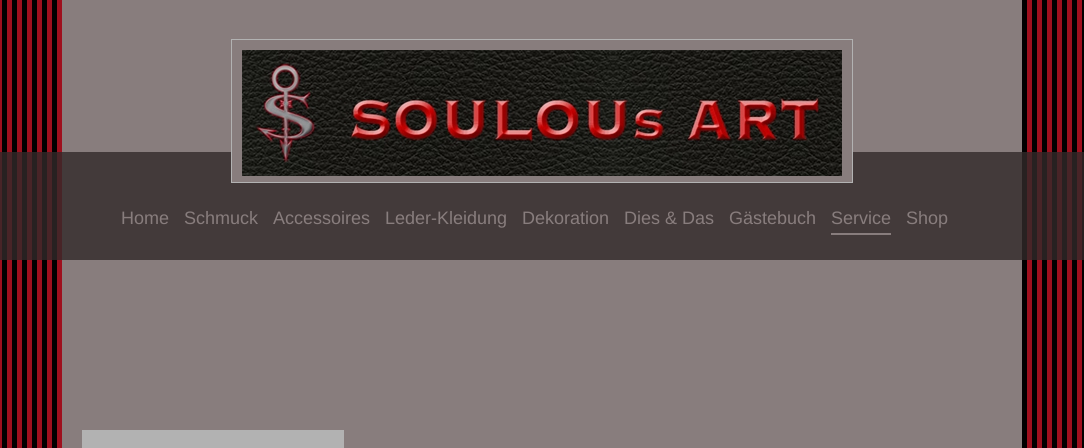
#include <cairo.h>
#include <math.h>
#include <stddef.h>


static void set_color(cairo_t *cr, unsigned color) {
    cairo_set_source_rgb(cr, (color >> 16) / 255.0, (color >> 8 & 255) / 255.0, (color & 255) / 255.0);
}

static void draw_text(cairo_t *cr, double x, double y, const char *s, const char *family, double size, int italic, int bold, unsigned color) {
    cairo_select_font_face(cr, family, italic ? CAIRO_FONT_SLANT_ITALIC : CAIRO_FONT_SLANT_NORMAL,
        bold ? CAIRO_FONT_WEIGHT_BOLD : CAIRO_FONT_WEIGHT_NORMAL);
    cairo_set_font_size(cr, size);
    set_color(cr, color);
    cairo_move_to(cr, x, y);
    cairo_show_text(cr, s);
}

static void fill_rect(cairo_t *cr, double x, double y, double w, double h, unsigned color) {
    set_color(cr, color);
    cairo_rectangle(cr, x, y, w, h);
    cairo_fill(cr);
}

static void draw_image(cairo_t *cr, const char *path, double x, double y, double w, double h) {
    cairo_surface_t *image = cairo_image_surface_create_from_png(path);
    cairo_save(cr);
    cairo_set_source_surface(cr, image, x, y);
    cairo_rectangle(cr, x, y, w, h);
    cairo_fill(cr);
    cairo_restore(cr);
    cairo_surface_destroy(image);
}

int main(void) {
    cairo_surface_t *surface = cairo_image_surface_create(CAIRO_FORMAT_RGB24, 1084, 448);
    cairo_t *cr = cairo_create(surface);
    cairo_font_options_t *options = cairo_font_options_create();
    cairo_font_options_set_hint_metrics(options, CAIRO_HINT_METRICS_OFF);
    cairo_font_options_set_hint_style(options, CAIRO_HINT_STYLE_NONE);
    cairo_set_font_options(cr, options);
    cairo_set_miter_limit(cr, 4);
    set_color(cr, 0x9E101E);
    cairo_paint(cr);
    draw_image(cr, "assets/img1.png", 2, 0, 1082, 448);
    fill_rect(cr, 62, 0, 960, 448, 0x887D7D);
    cairo_set_source_rgba(cr, 0.196, 0.165, 0.165, 0.8);
    cairo_rectangle(cr, 0, 152, 1084, 108);
    cairo_fill(cr);
    cairo_rectangle(cr, 231.5, 39.5, 621, 143);
    set_color(cr, 0xB2B2B2);
    cairo_set_line_width(cr, 1);
    cairo_stroke(cr);
    fill_rect(cr, 232, 152, 620, 30, 0x887D7D);
    draw_image(cr, "assets/img2.png", 242, 50, 600, 126);
    draw_text(cr, 121, 224, "Home", "Liberation Sans", 18, 0, 0, 0x887D7D);
    draw_text(cr, 184, 224, "Schmuck", "Liberation Sans", 18, 0, 0, 0x887D7D);
    draw_text(cr, 273, 224, "Accessoires", "Liberation Sans", 18, 0, 0, 0x887D7D);
    draw_text(cr, 385, 224, "Leder-Kleidung", "Liberation Sans", 18, 0, 0, 0x887D7D);
    draw_text(cr, 522, 224, "Dekoration", "Liberation Sans", 18, 0, 0, 0x887D7D);
    draw_text(cr, 624, 224, "Dies & Das", "Liberation Sans", 18, 0, 0, 0x887D7D);
    draw_text(cr, 729, 224, "Gästebuch", "Liberation Sans", 18, 0, 0, 0x887D7D);
    fill_rect(cr, 831, 233, 60, 2, 0x887D7D);
    draw_text(cr, 831, 224, "Service", "Liberation Sans", 18, 0, 0, 0x887D7D);
    draw_text(cr, 906, 224, "Shop", "Liberation Sans", 18, 0, 0, 0x887D7D);
    fill_rect(cr, 82, 430, 262, 18, 0xB2B2B2);
    cairo_surface_write_to_png(surface, "output.png");
    cairo_font_options_destroy(options);
    cairo_destroy(cr);
    cairo_surface_destroy(surface);
    return 0;
}
